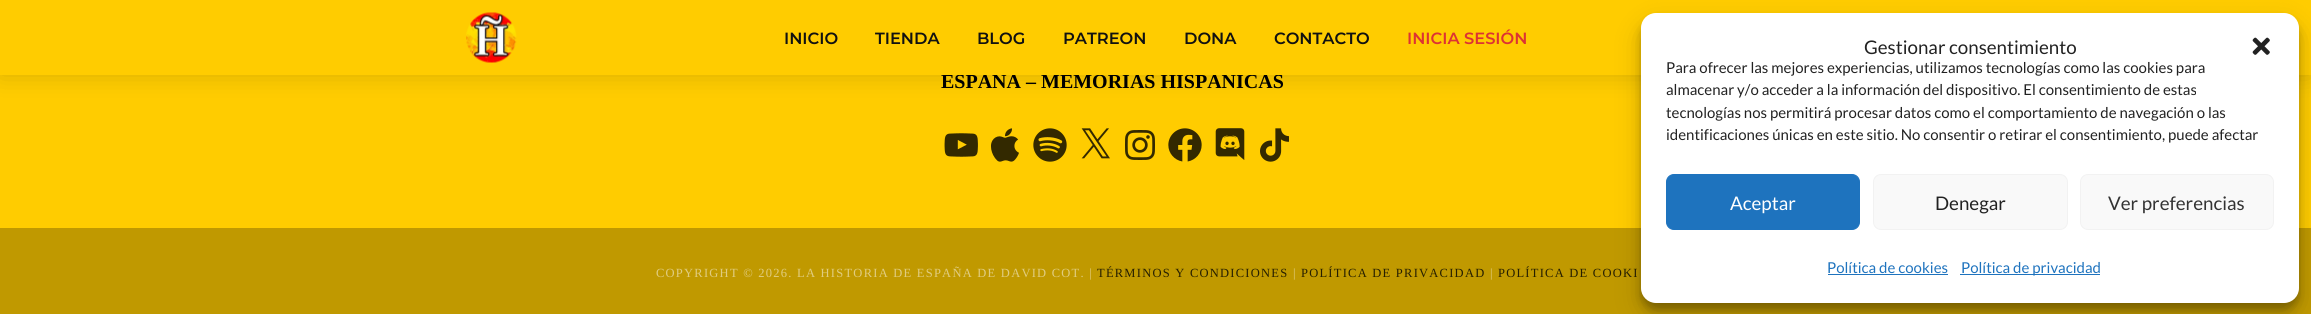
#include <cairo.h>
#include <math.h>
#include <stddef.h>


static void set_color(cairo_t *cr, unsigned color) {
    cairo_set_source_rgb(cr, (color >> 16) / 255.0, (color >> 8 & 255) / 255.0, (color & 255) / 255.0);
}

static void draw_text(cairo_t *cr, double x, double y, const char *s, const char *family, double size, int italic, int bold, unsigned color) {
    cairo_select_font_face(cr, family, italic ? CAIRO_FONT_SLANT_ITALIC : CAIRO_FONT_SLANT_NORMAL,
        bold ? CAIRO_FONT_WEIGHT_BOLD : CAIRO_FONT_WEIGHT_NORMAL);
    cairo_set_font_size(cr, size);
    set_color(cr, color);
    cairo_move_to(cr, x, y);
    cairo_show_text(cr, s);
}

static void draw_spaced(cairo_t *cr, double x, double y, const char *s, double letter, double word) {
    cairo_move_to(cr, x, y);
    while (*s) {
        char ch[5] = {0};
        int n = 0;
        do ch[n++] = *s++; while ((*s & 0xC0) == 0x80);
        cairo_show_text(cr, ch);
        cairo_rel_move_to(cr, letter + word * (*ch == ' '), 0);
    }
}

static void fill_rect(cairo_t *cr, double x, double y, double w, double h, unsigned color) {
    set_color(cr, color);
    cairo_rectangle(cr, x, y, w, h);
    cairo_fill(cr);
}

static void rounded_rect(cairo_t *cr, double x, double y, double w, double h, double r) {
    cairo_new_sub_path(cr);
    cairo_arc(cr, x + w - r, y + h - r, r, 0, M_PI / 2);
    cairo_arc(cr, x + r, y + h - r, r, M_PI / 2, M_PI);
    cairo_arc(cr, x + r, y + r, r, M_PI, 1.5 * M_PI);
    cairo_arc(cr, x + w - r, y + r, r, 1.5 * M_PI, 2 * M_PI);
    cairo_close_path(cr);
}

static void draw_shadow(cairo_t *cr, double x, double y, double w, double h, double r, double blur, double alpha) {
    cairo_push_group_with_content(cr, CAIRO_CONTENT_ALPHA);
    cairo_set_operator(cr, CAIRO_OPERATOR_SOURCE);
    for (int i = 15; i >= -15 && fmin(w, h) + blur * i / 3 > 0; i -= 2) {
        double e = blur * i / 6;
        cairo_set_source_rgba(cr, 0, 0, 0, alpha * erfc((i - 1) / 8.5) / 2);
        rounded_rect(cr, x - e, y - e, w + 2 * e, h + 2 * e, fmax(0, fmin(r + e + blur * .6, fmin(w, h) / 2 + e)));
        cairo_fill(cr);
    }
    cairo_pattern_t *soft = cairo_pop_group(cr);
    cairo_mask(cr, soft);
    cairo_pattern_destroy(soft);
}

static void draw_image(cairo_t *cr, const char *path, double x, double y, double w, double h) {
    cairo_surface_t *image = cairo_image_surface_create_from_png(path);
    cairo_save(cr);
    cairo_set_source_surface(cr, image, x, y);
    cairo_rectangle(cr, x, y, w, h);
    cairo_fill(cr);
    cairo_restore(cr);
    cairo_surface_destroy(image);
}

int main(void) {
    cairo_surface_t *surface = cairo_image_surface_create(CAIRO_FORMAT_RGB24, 2311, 314);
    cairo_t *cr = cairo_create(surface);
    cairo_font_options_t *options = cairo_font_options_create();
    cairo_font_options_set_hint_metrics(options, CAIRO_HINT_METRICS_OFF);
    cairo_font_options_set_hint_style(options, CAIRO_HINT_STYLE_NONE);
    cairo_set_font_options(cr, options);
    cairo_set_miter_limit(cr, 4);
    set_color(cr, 0xFFCC00);
    cairo_paint(cr);
    set_color(cr, 0x000000);
    draw_shadow(cr, 0, 0, 2311, 75, 0, 12.5, 0.15);
    draw_text(cr, 941, 88, "ESPAÑA – MEMORIAS HISPÁNICAS", "Liberation Serif", 20, 0, 1, 0x000000);
    fill_rect(cr, 0, 0, 2311, 75, 0xFFCC00);
    draw_image(cr, "assets/img1.png", 466, 12, 51, 51);
    draw_text(cr, 784, 44, "INICIO", "Montserrat SemiBold", 16.25, 0, 0, 0x111111);
    draw_text(cr, 875, 44, "TIENDA", "Montserrat SemiBold", 16.25, 0, 0, 0x111111);
    draw_text(cr, 977, 44, "BLOG", "Montserrat SemiBold", 16.25, 0, 0, 0x111111);
    draw_text(cr, 1063, 44, "PATREON", "Montserrat SemiBold", 16.25, 0, 0, 0x111111);
    draw_text(cr, 1184, 44, "DONA", "Montserrat SemiBold", 16.25, 0, 0, 0x111111);
    draw_text(cr, 1274, 44, "CONTACTO", "Montserrat SemiBold", 16.25, 0, 0, 0x111111);
    draw_text(cr, 1407, 44, "INICIA SESIÓN", "Montserrat SemiBold", 16.25, 0, 0, 0xDD3333);
    draw_image(cr, "assets/img2.png", 944, 133, 34, 24);
    draw_image(cr, "assets/img3.png", 991, 128, 28, 34);
    draw_image(cr, "assets/img4.png", 1033, 128, 34, 34);
    draw_image(cr, "assets/img5.png", 1081, 128, 29, 31);
    draw_image(cr, "assets/img6.png", 1125, 130, 30, 30);
    draw_image(cr, "assets/img7.png", 1168, 128, 34, 34);
    draw_image(cr, "assets/img8.png", 1215, 128, 30, 32);
    draw_image(cr, "assets/img9.png", 1260, 128, 29, 34);
    fill_rect(cr, 0, 228, 2311, 86, 0xC09900);
    cairo_select_font_face(cr, "Liberation Serif", CAIRO_FONT_SLANT_NORMAL, CAIRO_FONT_WEIGHT_NORMAL);
    cairo_set_font_size(cr, 12.5);
    set_color(cr, 0xE0CC80);
    draw_spaced(cr, 656, 277, "COPYRIGHT © 2026. LA HISTORIA DE ESPAÑA DE DAVID COT. |", 1.25, 0);
    set_color(cr, 0x261F00);
    draw_spaced(cr, 1097, 277, "TÉRMINOS Y CONDICIONES", 1.25, 0);
    set_color(cr, 0xE0CC80);
    draw_spaced(cr, 1293, 277, "|", 1.25, 0);
    set_color(cr, 0x261F00);
    draw_spaced(cr, 1301, 277, "POLÍTICA DE PRIVACIDAD", 1.25, 0);
    set_color(cr, 0xE0CC80);
    draw_spaced(cr, 1490, 277, "|", 1.25, 0);
    set_color(cr, 0x261F00);
    draw_spaced(cr, 1498, 277, "POLÍTICA DE COOKI", 1.25, 0);
    set_color(cr, 0x000000);
    draw_shadow(cr, 1641, 20, 658, 290, 15, 4, 0.23);
    draw_shadow(cr, 1641, 25, 658, 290, 15, 12.5, 0.19);
    set_color(cr, 0xFFFFFF);
    rounded_rect(cr, 1641, 13, 658, 290, 15);
    cairo_fill(cr);
    draw_text(cr, 1864, 54, "Gestionar consentimiento", "Lato", 18.75, 0, 0, 0x222222);
    draw_image(cr, "assets/img10.png", 2252, 37, 18, 18);
    draw_text(cr, 1666, 73, "Para ofrecer las mejores experiencias, utilizamos tecnologías como las cookies para", "Lato", 15, 0, 0, 0x222222);
    draw_text(cr, 1666, 95, "almacenar y/o acceder a la información del dispositivo. El consentimiento de estas", "Lato", 15, 0, 0, 0x222222);
    draw_text(cr, 1666, 118, "tecnologías nos permitirá procesar datos como el comportamiento de navegación o las", "Lato", 15, 0, 0, 0x222222);
    draw_text(cr, 1666, 140, "identificaciones únicas en este sitio. No consentir o retirar el consentimiento, puede afectar", "Lato", 15, 0, 0, 0x222222);
    set_color(cr, 0x1E73BE);
    rounded_rect(cr, 1666.5, 174.5, 193, 55, 7.5);
    cairo_fill_preserve(cr);
    cairo_set_line_width(cr, 1);
    cairo_stroke(cr);
    draw_text(cr, 1730, 210, "Aceptar", "Lato", 18.75, 0, 0, 0xFFFFFF);
    set_color(cr, 0xF9F9F9);
    rounded_rect(cr, 1873.5, 174.5, 194, 55, 7.5);
    cairo_fill_preserve(cr);
    set_color(cr, 0xF2F2F2);
    cairo_stroke(cr);
    draw_text(cr, 1935, 210, "Denegar", "Lato", 18.75, 0, 0, 0x222222);
    set_color(cr, 0xF9F9F9);
    rounded_rect(cr, 2080.5, 174.5, 193, 55, 7.5);
    cairo_fill_preserve(cr);
    set_color(cr, 0xF2F2F2);
    cairo_stroke(cr);
    draw_text(cr, 2108, 210, "Ver preferencias", "Lato", 18.75, 0, 0, 0x333333);
    draw_text(cr, 1827, 273, "Política de cookies", "Lato", 15, 0, 0, 0x1E73BE);
    fill_rect(cr, 1828, 274, 120, 1, 0x1E73BE);
    fill_rect(cr, 1960, 274, 140, 1, 0x1E73BE);
    draw_text(cr, 1961, 273, "Política de privacidad", "Lato", 15, 0, 0, 0x1E73BE);
    cairo_surface_write_to_png(surface, "output.png");
    cairo_font_options_destroy(options);
    cairo_destroy(cr);
    cairo_surface_destroy(surface);
    return 0;
}
